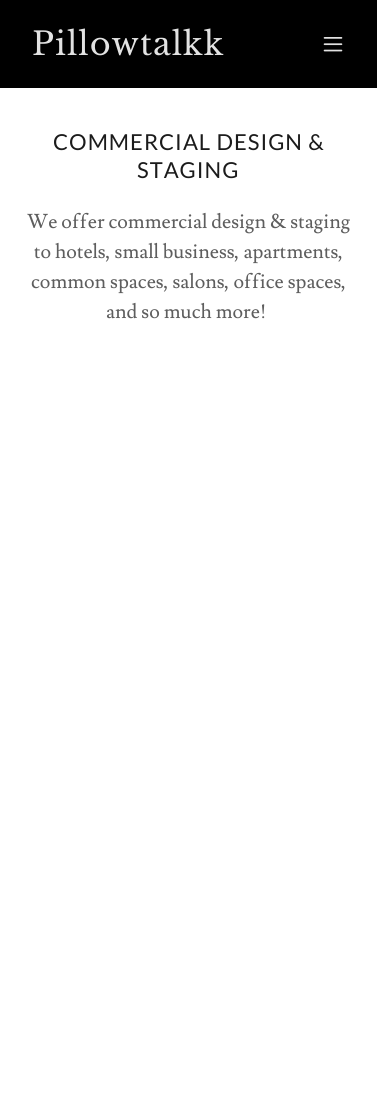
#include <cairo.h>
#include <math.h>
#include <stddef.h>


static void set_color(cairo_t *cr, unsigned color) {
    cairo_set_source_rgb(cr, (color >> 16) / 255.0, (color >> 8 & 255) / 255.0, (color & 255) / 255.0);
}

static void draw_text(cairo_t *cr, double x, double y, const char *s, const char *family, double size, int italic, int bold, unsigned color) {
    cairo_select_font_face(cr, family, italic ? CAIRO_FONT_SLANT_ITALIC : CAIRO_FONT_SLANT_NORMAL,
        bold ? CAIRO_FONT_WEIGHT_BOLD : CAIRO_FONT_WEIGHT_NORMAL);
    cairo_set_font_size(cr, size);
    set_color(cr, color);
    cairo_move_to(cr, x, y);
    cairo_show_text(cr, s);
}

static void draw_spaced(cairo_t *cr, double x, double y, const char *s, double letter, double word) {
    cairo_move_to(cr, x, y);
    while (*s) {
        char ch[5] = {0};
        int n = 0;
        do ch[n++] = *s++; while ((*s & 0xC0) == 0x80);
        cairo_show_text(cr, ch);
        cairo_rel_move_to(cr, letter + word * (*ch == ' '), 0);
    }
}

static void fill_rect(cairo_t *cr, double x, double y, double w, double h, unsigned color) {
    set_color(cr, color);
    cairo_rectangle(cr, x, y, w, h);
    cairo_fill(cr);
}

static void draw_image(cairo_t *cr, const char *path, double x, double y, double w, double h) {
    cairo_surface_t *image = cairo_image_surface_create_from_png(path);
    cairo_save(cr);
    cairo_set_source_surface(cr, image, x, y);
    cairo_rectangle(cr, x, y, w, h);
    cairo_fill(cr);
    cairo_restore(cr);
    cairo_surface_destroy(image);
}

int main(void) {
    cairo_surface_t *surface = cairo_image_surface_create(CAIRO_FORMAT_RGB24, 377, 1109);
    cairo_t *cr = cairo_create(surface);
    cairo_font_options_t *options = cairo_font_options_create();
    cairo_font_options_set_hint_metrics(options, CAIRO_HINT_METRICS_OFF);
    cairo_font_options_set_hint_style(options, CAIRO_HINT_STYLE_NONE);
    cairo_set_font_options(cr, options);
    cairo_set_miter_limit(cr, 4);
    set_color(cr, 0xFFFFFF);
    cairo_paint(cr);
    fill_rect(cr, 0, 0, 377, 88, 0x000000);
    cairo_select_font_face(cr, "Libre Baskerville", CAIRO_FONT_SLANT_NORMAL, CAIRO_FONT_WEIGHT_NORMAL);
    cairo_set_font_size(cr, 32);
    set_color(cr, 0xE2E2E2);
    draw_spaced(cr, 32, 55, "Pillowtalkk", 1, 0);
    draw_image(cr, "assets/img1.png", 323, 37, 20, 15);
    cairo_select_font_face(cr, "Lato", CAIRO_FONT_SLANT_NORMAL, CAIRO_FONT_WEIGHT_NORMAL);
    cairo_set_font_size(cr, 22);
    set_color(cr, 0x1B1B1B);
    draw_spaced(cr, 53, 150, "COMMERCIAL DESIGN &", 1, 0);
    draw_spaced(cr, 137, 178, "STAGING", 1, 0);
    draw_text(cr, 27, 228, "We offer commercial design & staging", "Lusitana", 20, 0, 0, 0x5E5E5E);
    draw_text(cr, 34, 258, "to hotels, small business, apartments,", "Lusitana", 20, 0, 0, 0x5E5E5E);
    draw_text(cr, 31, 288, "common spaces, salons, office spaces,", "Lusitana", 20, 0, 0, 0x5E5E5E);
    draw_text(cr, 106, 318, "and so much more!", "Lusitana", 20, 0, 0, 0x5E5E5E);
    cairo_surface_write_to_png(surface, "output.png");
    cairo_font_options_destroy(options);
    cairo_destroy(cr);
    cairo_surface_destroy(surface);
    return 0;
}
